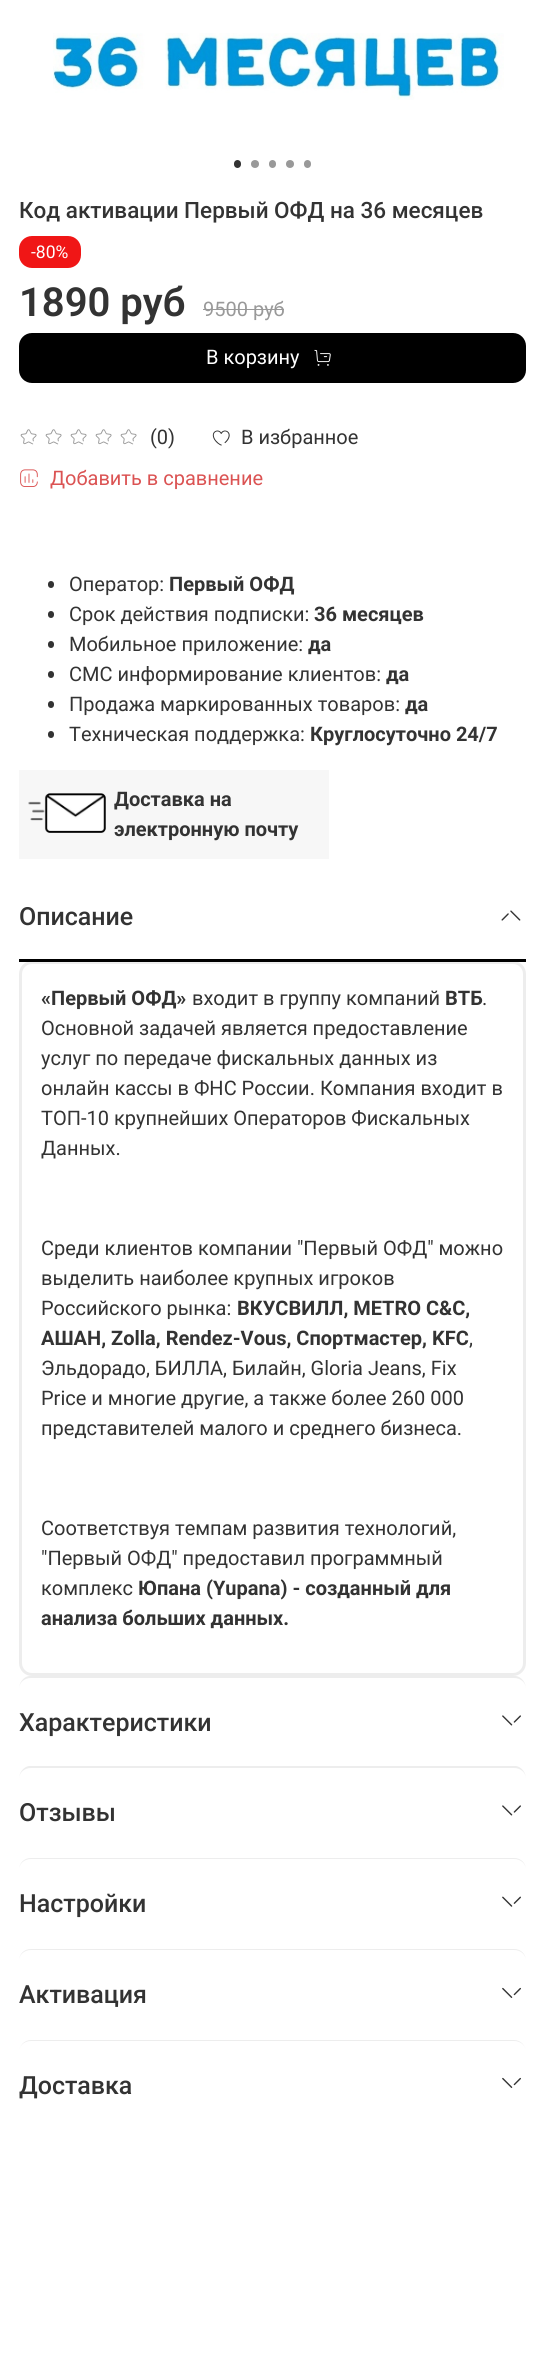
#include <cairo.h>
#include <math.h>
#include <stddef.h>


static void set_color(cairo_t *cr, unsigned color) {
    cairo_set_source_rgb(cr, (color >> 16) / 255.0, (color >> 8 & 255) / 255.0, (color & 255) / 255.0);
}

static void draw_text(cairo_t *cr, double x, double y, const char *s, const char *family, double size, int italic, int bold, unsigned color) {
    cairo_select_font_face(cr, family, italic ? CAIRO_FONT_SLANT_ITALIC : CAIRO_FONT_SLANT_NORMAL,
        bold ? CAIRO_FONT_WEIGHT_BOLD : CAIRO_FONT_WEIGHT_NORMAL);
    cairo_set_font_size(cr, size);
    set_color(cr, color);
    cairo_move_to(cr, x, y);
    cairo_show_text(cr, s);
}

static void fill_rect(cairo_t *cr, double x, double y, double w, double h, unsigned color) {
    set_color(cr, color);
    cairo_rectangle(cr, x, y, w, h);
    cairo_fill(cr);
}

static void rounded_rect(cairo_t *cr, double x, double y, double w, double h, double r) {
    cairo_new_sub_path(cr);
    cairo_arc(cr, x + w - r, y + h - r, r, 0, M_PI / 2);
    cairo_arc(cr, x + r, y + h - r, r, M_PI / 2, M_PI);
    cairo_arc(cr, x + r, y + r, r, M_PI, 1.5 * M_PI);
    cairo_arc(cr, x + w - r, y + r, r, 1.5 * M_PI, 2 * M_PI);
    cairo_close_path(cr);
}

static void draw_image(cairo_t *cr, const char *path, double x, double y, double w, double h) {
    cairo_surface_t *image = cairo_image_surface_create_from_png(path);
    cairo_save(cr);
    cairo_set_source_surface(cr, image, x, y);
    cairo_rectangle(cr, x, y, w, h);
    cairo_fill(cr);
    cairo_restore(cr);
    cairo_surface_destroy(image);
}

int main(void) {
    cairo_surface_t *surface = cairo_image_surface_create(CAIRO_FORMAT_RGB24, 545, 2360);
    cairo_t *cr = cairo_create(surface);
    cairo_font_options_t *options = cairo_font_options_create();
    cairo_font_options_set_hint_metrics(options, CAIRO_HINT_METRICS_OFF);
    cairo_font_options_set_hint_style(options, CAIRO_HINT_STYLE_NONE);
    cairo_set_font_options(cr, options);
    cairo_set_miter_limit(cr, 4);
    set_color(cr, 0xFFFFFF);
    cairo_paint(cr);
    draw_image(cr, "assets/img1.png", 53, 33, 451, 67);
    set_color(cr, 0x333333);
    rounded_rect(cr, 234, 160, 7, 8, 3.5);
    cairo_fill(cr);
    set_color(cr, 0x999999);
    cairo_arc(cr, 255, 164, 4, 0, 2 * M_PI);
    cairo_fill(cr);
    rounded_rect(cr, 269, 160, 7, 8, 3.5);
    cairo_fill(cr);
    cairo_arc(cr, 290, 164, 4, 0, 2 * M_PI);
    cairo_fill(cr);
    rounded_rect(cr, 304, 160, 7, 8, 3.5);
    cairo_fill(cr);
    draw_text(cr, 19, 218, "Код активации Первый ОФД на 36 месяцев", "Roboto Medium", 22.5, 0, 0, 0x333333);
    set_color(cr, 0xF01616);
    rounded_rect(cr, 19, 236, 62, 32, 13);
    cairo_fill(cr);
    draw_text(cr, 31, 258, "-80%", "Roboto", 17.5, 0, 0, 0xFFFFFF);
    draw_text(cr, 19, 316, "1890 руб", "Roboto SemiBold", 40, 0, 0, 0x333333);
    draw_text(cr, 203, 316, "9500 руб", "Roboto", 20, 0, 0, 0x999999);
    fill_rect(cr, 203, 309, 81, 1, 0x999999);
    set_color(cr, 0x000000);
    rounded_rect(cr, 19, 333, 507, 50, 13);
    cairo_fill(cr);
    draw_text(cr, 206, 364, "В корзину", "Roboto", 20, 0, 0, 0xFFFFFF);
    draw_image(cr, "assets/img2.png", 314, 349, 17, 17);
    draw_image(cr, "assets/img3.png", 20, 429, 17, 16);
    draw_image(cr, "assets/img3.png", 45, 429, 17, 16);
    draw_image(cr, "assets/img3.png", 70, 429, 17, 16);
    draw_image(cr, "assets/img3.png", 95, 429, 17, 16);
    draw_image(cr, "assets/img3.png", 120, 429, 17, 16);
    draw_text(cr, 150, 444, "(0)", "Roboto", 20, 0, 0, 0x333333);
    draw_image(cr, "assets/img4.png", 212, 430, 18, 16);
    draw_text(cr, 241, 444, "В избранное", "Roboto", 20, 0, 0, 0x333333);
    draw_image(cr, "assets/img5.png", 20, 469, 18, 18);
    draw_text(cr, 50, 485, "Добавить в сравнение", "Roboto", 20, 0, 0, 0xDB5353);
    set_color(cr, 0x333333);
    rounded_rect(cr, 48, 581, 6, 7, 3);
    cairo_fill(cr);
    draw_text(cr, 69, 591, "Оператор:", "Roboto", 20, 0, 0, 0x333333);
    draw_text(cr, 169, 591, "Первый ОФД", "Roboto", 20, 0, 1, 0x333333);
    rounded_rect(cr, 48, 611, 6, 7, 3);
    cairo_fill(cr);
    draw_text(cr, 69, 621, "Срок действия подписки:", "Roboto", 20, 0, 0, 0x333333);
    draw_text(cr, 314, 621, "36 месяцев", "Roboto", 20, 0, 1, 0x333333);
    rounded_rect(cr, 48, 641, 6, 7, 3);
    cairo_fill(cr);
    draw_text(cr, 69, 651, "Мобильное приложение:", "Roboto", 20, 0, 0, 0x333333);
    draw_text(cr, 308, 651, "да", "Roboto", 20, 0, 1, 0x333333);
    rounded_rect(cr, 48, 671, 6, 7, 3);
    cairo_fill(cr);
    draw_text(cr, 69, 681, "СМС информирование клиентов:", "Roboto", 20, 0, 0, 0x333333);
    draw_text(cr, 386, 681, "да", "Roboto", 20, 0, 1, 0x333333);
    rounded_rect(cr, 48, 701, 6, 7, 3);
    cairo_fill(cr);
    draw_text(cr, 69, 711, "Продажа маркированных товаров:", "Roboto", 20, 0, 0, 0x333333);
    draw_text(cr, 405, 711, "да", "Roboto", 20, 0, 1, 0x333333);
    rounded_rect(cr, 48, 731, 6, 7, 3);
    cairo_fill(cr);
    draw_text(cr, 69, 741, "Техническая поддержка:", "Roboto", 20, 0, 0, 0x333333);
    draw_text(cr, 310, 741, "Круглосуточно 24/7", "Roboto", 20, 0, 1, 0x333333);
    fill_rect(cr, 19, 770, 310, 89, 0xF7F7F7);
    draw_image(cr, "assets/img6.png", 28, 793, 78, 40);
    draw_text(cr, 114, 806, "Доставка на", "Roboto", 20, 0, 1, 0x333333);
    draw_text(cr, 114, 836, "электронную почту", "Roboto", 20, 0, 1, 0x333333);
    rounded_rect(cr, 20.5, 962.5, 504, 712, 11.5);
    set_color(cr, 0xEDEDED);
    cairo_set_line_width(cr, 3);
    cairo_stroke(cr);
    fill_rect(cr, 19, 959, 507, 3, 0x000000);
    draw_text(cr, 19, 925, "Описание", "Roboto Medium", 25, 0, 0, 0x333333);
    draw_image(cr, "assets/img7.png", 501, 910, 20, 11);
    draw_text(cr, 41, 1005, "«Первый ОФД»", "Roboto", 20, 0, 1, 0x333333);
    draw_text(cr, 192, 1005, "входит в группу компаний", "Roboto", 20, 0, 0, 0x333333);
    draw_text(cr, 445, 1005, "ВТБ", "Roboto", 20, 0, 1, 0x333333);
    draw_text(cr, 482, 1005, ".", "Roboto", 20, 0, 0, 0x333333);
    draw_text(cr, 41, 1035, "Основной задачей является предоставление", "Roboto", 20, 0, 0, 0x333333);
    draw_text(cr, 41, 1065, "услуг по передаче фискальных данных из", "Roboto", 20, 0, 0, 0x333333);
    draw_text(cr, 41, 1095, "онлайн кассы в ФНС России. Компания входит в", "Roboto", 20, 0, 0, 0x333333);
    draw_text(cr, 41, 1125, "ТОП-10 крупнейших Операторов Фискальных", "Roboto", 20, 0, 0, 0x333333);
    draw_text(cr, 41, 1155, "Данных.", "Roboto", 20, 0, 0, 0x333333);
    draw_text(cr, 41, 1255, "Среди клиентов компании \"Первый ОФД\" можно", "Roboto", 20, 0, 0, 0x333333);
    draw_text(cr, 41, 1285, "выделить наиболее крупных игроков", "Roboto", 20, 0, 0, 0x333333);
    draw_text(cr, 41, 1315, "Российского рынка:", "Roboto", 20, 0, 0, 0x333333);
    draw_text(cr, 237, 1315, "ВКУСВИЛЛ, METRO C&C,", "Roboto", 20, 0, 1, 0x333333);
    draw_text(cr, 41, 1345, "АШАН, Zolla, Rendez-Vous, Спортмастер, KFC", "Roboto", 20, 0, 1, 0x333333);
    draw_text(cr, 469, 1345, ",", "Roboto", 20, 0, 0, 0x333333);
    draw_text(cr, 41, 1375, "Эльдорадо, БИЛЛА, Билайн, Gloria Jeans, Fix", "Roboto", 20, 0, 0, 0x333333);
    draw_text(cr, 41, 1405, "Price и многие другие, а также более 260 000", "Roboto", 20, 0, 0, 0x333333);
    draw_text(cr, 41, 1435, "представителей малого и среднего бизнеса.", "Roboto", 20, 0, 0, 0x333333);
    draw_text(cr, 41, 1535, "Соответствуя темпам развития технологий,", "Roboto", 20, 0, 0, 0x333333);
    draw_text(cr, 41, 1565, "\"Первый ОФД\" предоставил программный", "Roboto", 20, 0, 0, 0x333333);
    draw_text(cr, 41, 1595, "комплекс", "Roboto", 20, 0, 0, 0x333333);
    draw_text(cr, 138, 1595, "Юпана (Yupana) - созданный для", "Roboto", 20, 0, 1, 0x333333);
    draw_text(cr, 41, 1625, "анализа больших данных.", "Roboto", 20, 0, 1, 0x333333);
    set_color(cr, 0xEDEDED);
    cairo_new_path(cr);
    cairo_move_to(cr, 31, 1678);
    cairo_line_to(cr, 514, 1678);
    cairo_curve_to(cr, 521, 1678, 526, 1683, 526, 1689);
    cairo_curve_to(cr, 526, 1683, 522, 1677, 516, 1676);
    cairo_line_to(cr, 29, 1676);
    cairo_curve_to(cr, 23, 1677, 19, 1683, 19, 1689);
    cairo_curve_to(cr, 19, 1683, 24, 1678, 31, 1678);
    cairo_close_path(cr);
    cairo_fill(cr);
    draw_text(cr, 19, 1731, "Характеристики", "Roboto Medium", 25, 0, 0, 0x333333);
    draw_image(cr, "assets/img8.png", 502, 1715, 19, 11);
    set_color(cr, 0xEDEDED);
    cairo_new_path(cr);
    cairo_move_to(cr, 31, 1768);
    cairo_line_to(cr, 514, 1768);
    cairo_curve_to(cr, 521, 1768, 526, 1773, 526, 1779);
    cairo_curve_to(cr, 526, 1773, 522, 1767, 516, 1766);
    cairo_line_to(cr, 29, 1766);
    cairo_curve_to(cr, 23, 1767, 19, 1773, 19, 1779);
    cairo_curve_to(cr, 19, 1773, 24, 1768, 31, 1768);
    cairo_close_path(cr);
    cairo_fill(cr);
    draw_text(cr, 19, 1821, "Отзывы", "Roboto Medium", 25, 0, 0, 0x333333);
    draw_image(cr, "assets/img8.png", 502, 1805, 19, 11);
    set_color(cr, 0xEDEDED);
    cairo_new_path(cr);
    cairo_move_to(cr, 31, 1858);
    cairo_curve_to(cr, 24, 1858, 19, 1863, 19, 1870);
    cairo_curve_to(cr, 19, 1864, 24, 1859, 31, 1859);
    cairo_line_to(cr, 514, 1859);
    cairo_curve_to(cr, 521, 1859, 526, 1864, 526, 1870);
    cairo_curve_to(cr, 526, 1863, 521, 1858, 514, 1858);
    cairo_close_path(cr);
    cairo_fill(cr);
    draw_text(cr, 19, 1912, "Настройки", "Roboto Medium", 25, 0, 0, 0x333333);
    draw_image(cr, "assets/img9.png", 502, 1896, 19, 11);
    set_color(cr, 0xEDEDED);
    cairo_new_path(cr);
    cairo_move_to(cr, 31, 1949);
    cairo_curve_to(cr, 24, 1949, 19, 1954, 19, 1961);
    cairo_curve_to(cr, 19, 1955, 24, 1950, 31, 1950);
    cairo_line_to(cr, 514, 1950);
    cairo_curve_to(cr, 521, 1950, 526, 1955, 526, 1961);
    cairo_curve_to(cr, 526, 1954, 521, 1949, 514, 1949);
    cairo_close_path(cr);
    cairo_fill(cr);
    draw_text(cr, 19, 2003, "Активация", "Roboto Medium", 25, 0, 0, 0x333333);
    draw_image(cr, "assets/img10.png", 502, 1987, 19, 11);
    set_color(cr, 0xEDEDED);
    cairo_new_path(cr);
    cairo_move_to(cr, 31, 2040);
    cairo_curve_to(cr, 24, 2040, 19, 2046, 19, 2052);
    cairo_curve_to(cr, 19, 2046, 24, 2041, 31, 2041);
    cairo_line_to(cr, 514, 2041);
    cairo_curve_to(cr, 521, 2041, 526, 2046, 526, 2052);
    cairo_curve_to(cr, 526, 2046, 521, 2040, 514, 2040);
    cairo_close_path(cr);
    cairo_fill(cr);
    draw_text(cr, 19, 2094, "Доставка", "Roboto Medium", 25, 0, 0, 0x333333);
    draw_image(cr, "assets/img10.png", 502, 2077, 19, 11);
    cairo_surface_write_to_png(surface, "output.png");
    cairo_font_options_destroy(options);
    cairo_destroy(cr);
    cairo_surface_destroy(surface);
    return 0;
}
